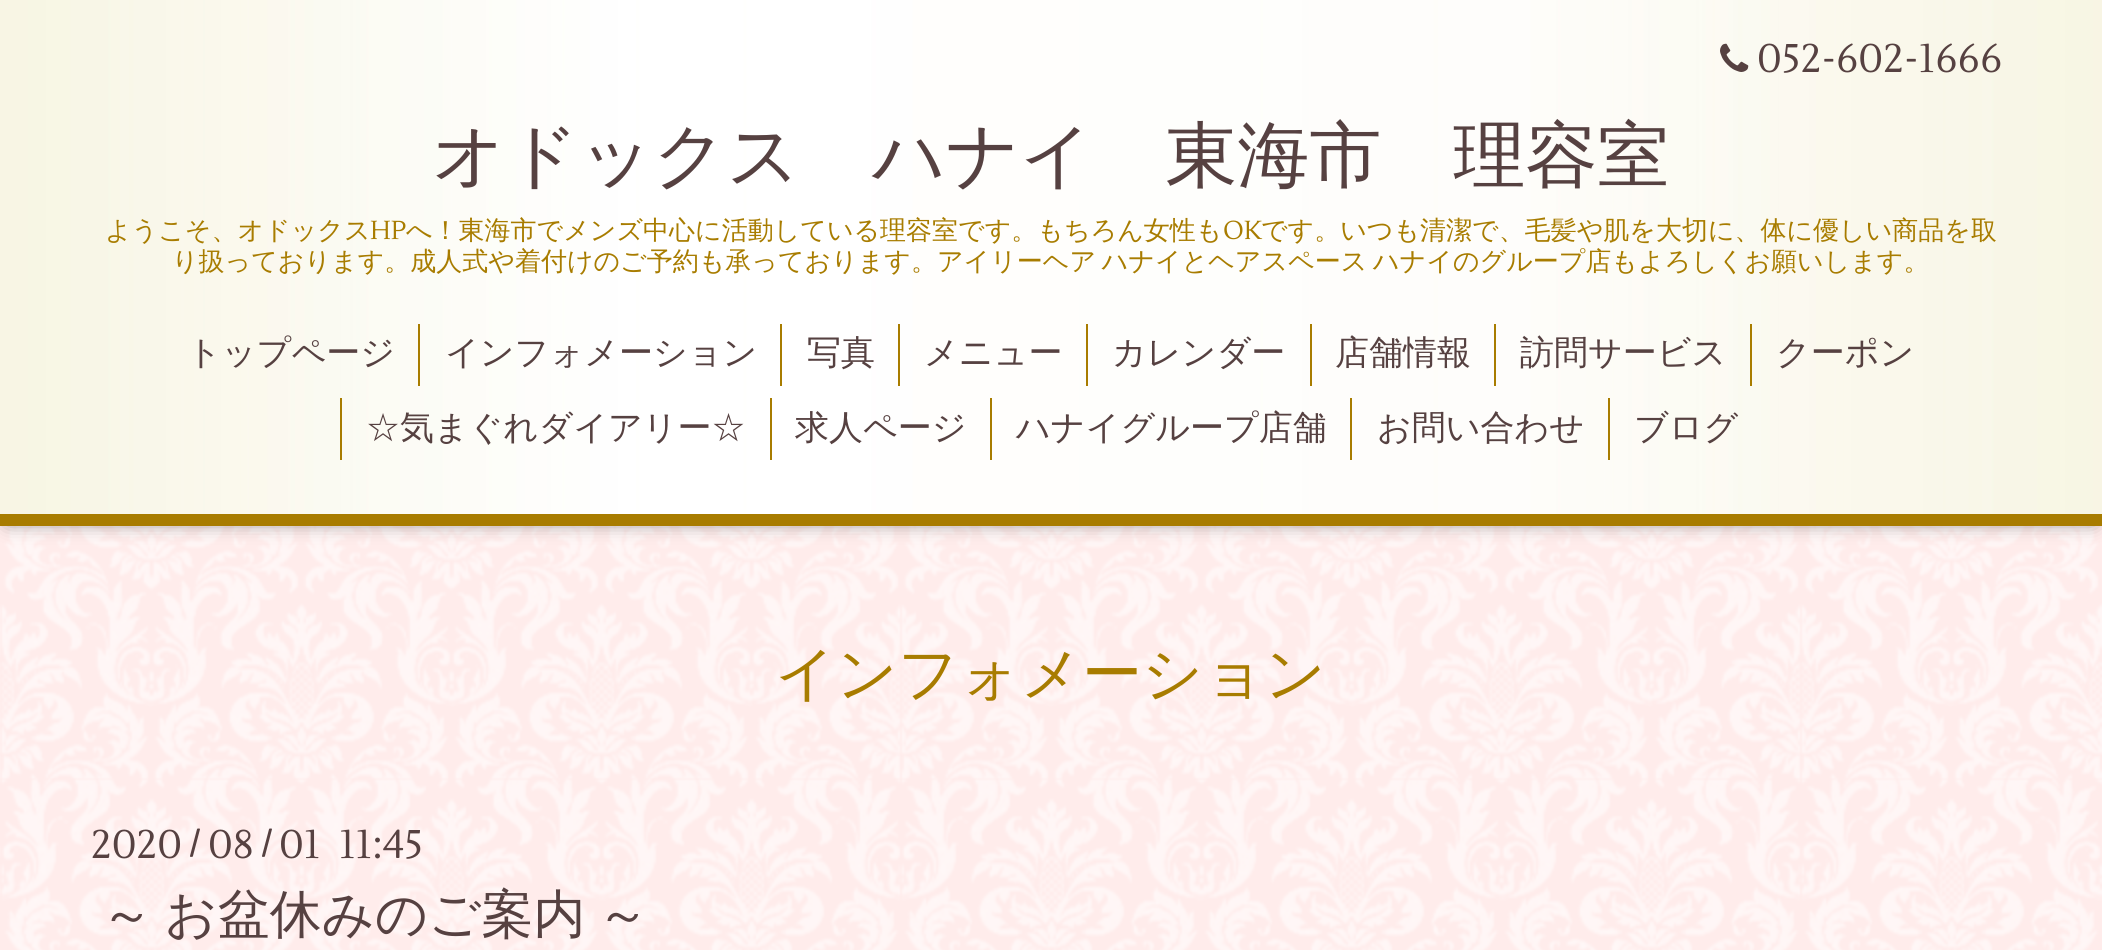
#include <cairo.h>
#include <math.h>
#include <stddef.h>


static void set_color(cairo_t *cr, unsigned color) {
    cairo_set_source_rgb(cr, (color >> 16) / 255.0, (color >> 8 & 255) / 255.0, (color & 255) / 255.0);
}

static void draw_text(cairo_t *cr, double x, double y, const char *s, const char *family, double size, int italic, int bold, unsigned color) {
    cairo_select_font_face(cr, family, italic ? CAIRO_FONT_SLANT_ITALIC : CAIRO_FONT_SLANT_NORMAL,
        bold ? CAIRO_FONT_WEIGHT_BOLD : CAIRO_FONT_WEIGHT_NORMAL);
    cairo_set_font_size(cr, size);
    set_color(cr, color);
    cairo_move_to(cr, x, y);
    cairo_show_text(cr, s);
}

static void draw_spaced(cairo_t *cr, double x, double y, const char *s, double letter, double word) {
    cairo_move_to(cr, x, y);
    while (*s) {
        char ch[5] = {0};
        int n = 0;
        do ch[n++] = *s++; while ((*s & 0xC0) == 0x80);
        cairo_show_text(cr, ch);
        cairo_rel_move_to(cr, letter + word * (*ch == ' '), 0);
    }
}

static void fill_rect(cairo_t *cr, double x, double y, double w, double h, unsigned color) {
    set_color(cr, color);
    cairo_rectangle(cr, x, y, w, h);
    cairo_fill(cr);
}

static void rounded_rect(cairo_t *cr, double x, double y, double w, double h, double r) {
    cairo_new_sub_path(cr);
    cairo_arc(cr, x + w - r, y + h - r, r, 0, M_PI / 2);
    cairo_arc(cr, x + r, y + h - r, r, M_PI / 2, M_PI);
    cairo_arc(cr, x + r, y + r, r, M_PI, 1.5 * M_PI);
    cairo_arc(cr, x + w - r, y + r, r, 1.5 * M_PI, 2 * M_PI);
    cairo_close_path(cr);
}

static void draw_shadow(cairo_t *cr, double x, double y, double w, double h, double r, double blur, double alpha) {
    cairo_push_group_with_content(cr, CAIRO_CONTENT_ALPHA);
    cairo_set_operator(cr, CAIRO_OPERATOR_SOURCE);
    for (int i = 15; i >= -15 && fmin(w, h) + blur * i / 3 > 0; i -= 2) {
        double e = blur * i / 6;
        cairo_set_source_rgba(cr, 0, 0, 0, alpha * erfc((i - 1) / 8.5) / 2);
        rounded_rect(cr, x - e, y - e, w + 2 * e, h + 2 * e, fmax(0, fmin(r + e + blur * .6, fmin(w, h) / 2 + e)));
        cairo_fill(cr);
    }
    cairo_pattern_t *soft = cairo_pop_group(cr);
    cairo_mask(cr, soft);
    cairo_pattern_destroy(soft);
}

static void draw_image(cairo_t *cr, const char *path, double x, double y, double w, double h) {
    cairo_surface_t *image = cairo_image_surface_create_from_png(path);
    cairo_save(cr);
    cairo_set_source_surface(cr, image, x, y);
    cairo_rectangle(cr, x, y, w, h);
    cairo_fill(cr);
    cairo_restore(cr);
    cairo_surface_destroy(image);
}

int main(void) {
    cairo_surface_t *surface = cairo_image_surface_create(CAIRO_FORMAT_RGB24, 2102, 950);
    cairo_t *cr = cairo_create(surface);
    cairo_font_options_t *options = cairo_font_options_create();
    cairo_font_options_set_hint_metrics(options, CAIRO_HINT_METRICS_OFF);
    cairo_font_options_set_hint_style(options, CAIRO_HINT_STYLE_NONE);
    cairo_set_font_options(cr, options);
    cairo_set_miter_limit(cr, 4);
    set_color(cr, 0xFFECEB);
    cairo_paint(cr);
    draw_image(cr, "assets/img1.png", 0, 526, 2102, 424);
    set_color(cr, 0x000000);
    draw_shadow(cr, 8, 10, 2086, 510, 0, 10, 0.6);
    draw_image(cr, "assets/img2.png", 0, 0, 2102, 514);
    fill_rect(cr, 0, 514, 2102, 12, 0xA87C00);
    draw_image(cr, "assets/img3.png", 1720, 43, 29, 29);
    draw_text(cr, 1757, 72, "052-602-1666", "Lustria", 40, 0, 0, 0x564141);
    draw_text(cr, 432, 180, "オドックス　ハナイ　東海市　理容室", "WenQuanYi Zen Hei Medium", 72, 0, 0, 0x564141);
    draw_text(cr, 105, 239, "ようこそ、オドックス", "WenQuanYi Zen Hei Medium", 26, 0, 0, 0xA87C00);
    draw_text(cr, 370, 239, "HP", "Lustria", 26, 0, 0, 0xA87C00);
    draw_text(cr, 406, 239, "へ！東海市でメンズ中心に活動している理容室です。もちろん女性も", "WenQuanYi Zen Hei Medium", 26, 0, 0, 0xA87C00);
    draw_text(cr, 1223, 239, "OK", "Lustria", 26, 0, 0, 0xA87C00);
    draw_text(cr, 1261, 239, "です。いつも清潔で、毛髪や肌を大切に、体に優しい商品を取", "WenQuanYi Zen Hei Medium", 26, 0, 0, 0xA87C00);
    draw_spaced(cr, 172, 270, "り扱っております。成人式や着付けのご予約も承っております。アイリーヘア ハナイとヘアスペース ハナイのグループ店もよろしくお願いします。", 0, -2);
    draw_text(cr, 187, 364, "トップページ", "WenQuanYi Zen Hei Medium", 34, 0, 0, 0x564141);
    fill_rect(cr, 418, 324, 2, 62, 0xA87C00);
    draw_text(cr, 445, 364, "インフォメーション", "WenQuanYi Zen Hei Medium", 34, 0, 0, 0x564141);
    fill_rect(cr, 780, 324, 2, 62, 0xA87C00);
    draw_text(cr, 807, 364, "写真", "WenQuanYi Zen Hei Medium", 34, 0, 0, 0x564141);
    fill_rect(cr, 898, 324, 2, 62, 0xA87C00);
    draw_text(cr, 924, 364, "メニュー", "WenQuanYi Zen Hei Medium", 34, 0, 0, 0x564141);
    fill_rect(cr, 1086, 324, 2, 62, 0xA87C00);
    draw_text(cr, 1112, 364, "カレンダー", "WenQuanYi Zen Hei Medium", 34, 0, 0, 0x564141);
    fill_rect(cr, 1310, 324, 2, 62, 0xA87C00);
    draw_text(cr, 1335, 364, "店舗情報", "WenQuanYi Zen Hei Medium", 34, 0, 0, 0x564141);
    fill_rect(cr, 1494, 324, 2, 62, 0xA87C00);
    draw_text(cr, 1520, 364, "訪問サービス", "WenQuanYi Zen Hei Medium", 34, 0, 0, 0x564141);
    fill_rect(cr, 1750, 324, 2, 62, 0xA87C00);
    draw_text(cr, 1776, 364, "クーポン", "WenQuanYi Zen Hei Medium", 34, 0, 0, 0x564141);
    fill_rect(cr, 340, 398, 2, 62, 0xA87C00);
    draw_text(cr, 366, 439, "☆気まぐれダイアリー☆", "WenQuanYi Zen Hei Medium", 34, 0, 0, 0x564141);
    fill_rect(cr, 770, 398, 2, 62, 0xA87C00);
    draw_text(cr, 795, 439, "求人ページ", "WenQuanYi Zen Hei Medium", 34, 0, 0, 0x564141);
    fill_rect(cr, 990, 398, 2, 62, 0xA87C00);
    draw_text(cr, 1016, 439, "ハナイグループ店舗", "WenQuanYi Zen Hei Medium", 34, 0, 0, 0x564141);
    fill_rect(cr, 1350, 398, 2, 62, 0xA87C00);
    draw_text(cr, 1377, 439, "お問い合わせ", "WenQuanYi Zen Hei Medium", 34, 0, 0, 0x564141);
    fill_rect(cr, 1608, 398, 2, 62, 0xA87C00);
    draw_text(cr, 1634, 439, "ブログ", "WenQuanYi Zen Hei Medium", 34, 0, 0, 0x564141);
    draw_text(cr, 775, 694, "インフォメーション", "WenQuanYi Zen Hei Medium", 60, 0, 0, 0xA87C00);
    draw_text(cr, 91, 858, "2020", "Lustria", 40, 0, 0, 0x564141);
    draw_text(cr, 189, 854, "/", "Lustria", 32, 0, 1, 0x564141);
    draw_text(cr, 208, 858, "08", "Lustria", 40, 0, 0, 0x564141);
    draw_text(cr, 261, 854, "/", "Lustria", 32, 0, 1, 0x564141);
    draw_text(cr, 279, 858, "01  11:45", "Lustria", 40, 0, 0, 0x564141);
    cairo_select_font_face(cr, "WenQuanYi Zen Hei Medium", CAIRO_FONT_SLANT_NORMAL, CAIRO_FONT_WEIGHT_NORMAL);
    cairo_set_font_size(cr, 52);
    draw_spaced(cr, 101, 932, "～ お盆休みのご案内 ～", 0, -4);
    cairo_surface_write_to_png(surface, "output.png");
    cairo_font_options_destroy(options);
    cairo_destroy(cr);
    cairo_surface_destroy(surface);
    return 0;
}
